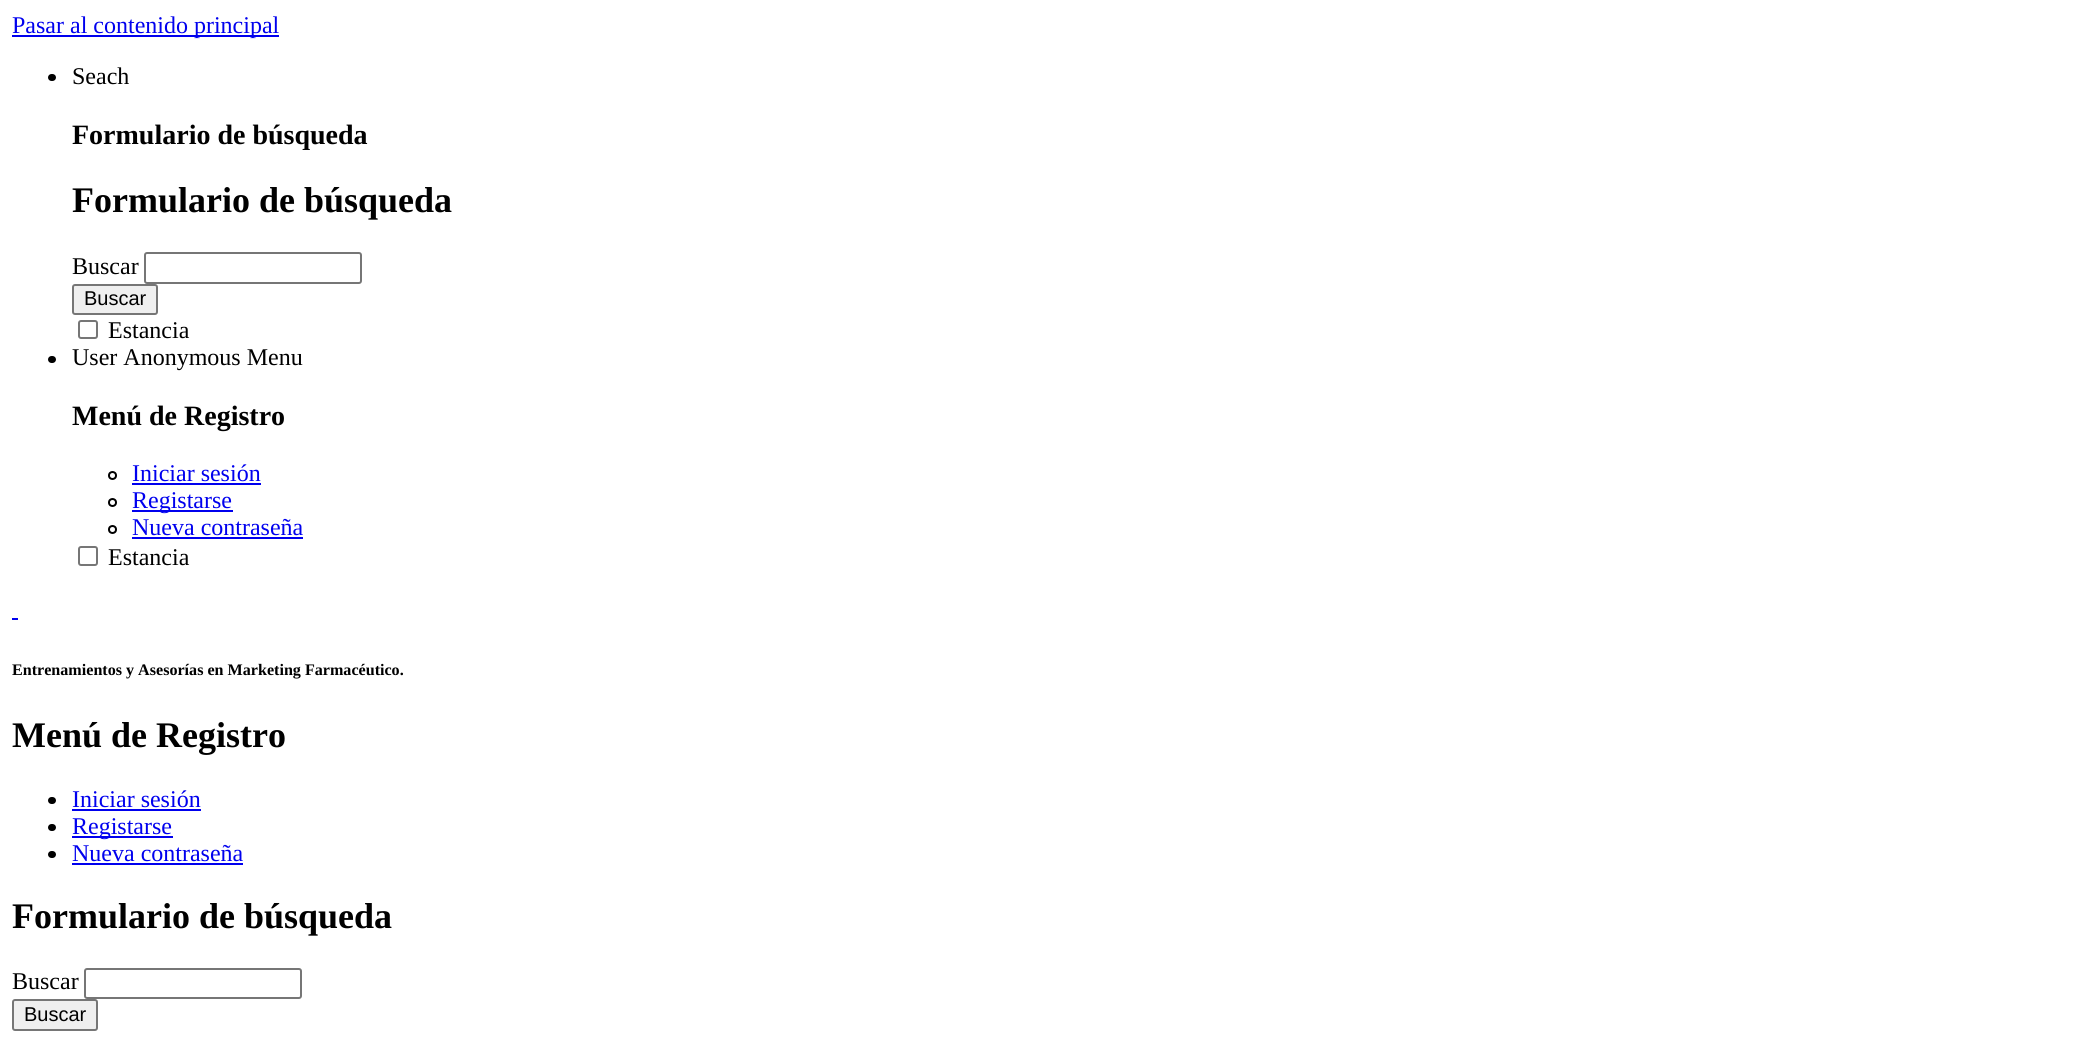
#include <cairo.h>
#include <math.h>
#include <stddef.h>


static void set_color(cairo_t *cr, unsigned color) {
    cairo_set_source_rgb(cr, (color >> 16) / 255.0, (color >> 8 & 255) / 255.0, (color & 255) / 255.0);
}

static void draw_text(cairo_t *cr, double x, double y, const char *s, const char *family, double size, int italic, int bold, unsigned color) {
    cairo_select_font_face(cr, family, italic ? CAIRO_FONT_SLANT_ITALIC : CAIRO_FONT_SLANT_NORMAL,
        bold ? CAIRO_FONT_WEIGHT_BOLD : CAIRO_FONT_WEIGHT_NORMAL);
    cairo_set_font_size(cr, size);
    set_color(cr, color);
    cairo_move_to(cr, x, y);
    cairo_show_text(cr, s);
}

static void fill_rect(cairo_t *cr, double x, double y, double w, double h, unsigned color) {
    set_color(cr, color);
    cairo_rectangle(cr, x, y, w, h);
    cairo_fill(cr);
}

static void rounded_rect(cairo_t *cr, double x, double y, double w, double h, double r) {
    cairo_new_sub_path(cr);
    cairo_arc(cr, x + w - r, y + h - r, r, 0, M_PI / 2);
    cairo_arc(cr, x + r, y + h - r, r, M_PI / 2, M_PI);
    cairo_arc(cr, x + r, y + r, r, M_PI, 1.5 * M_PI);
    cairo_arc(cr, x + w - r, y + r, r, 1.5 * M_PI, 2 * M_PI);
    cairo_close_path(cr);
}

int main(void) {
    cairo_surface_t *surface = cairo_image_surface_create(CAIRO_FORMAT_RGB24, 2080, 1052);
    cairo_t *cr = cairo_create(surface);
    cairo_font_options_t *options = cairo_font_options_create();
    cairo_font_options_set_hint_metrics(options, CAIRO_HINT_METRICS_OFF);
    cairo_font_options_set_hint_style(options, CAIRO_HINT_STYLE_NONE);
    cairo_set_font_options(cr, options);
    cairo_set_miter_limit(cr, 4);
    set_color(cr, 0xFFFFFF);
    cairo_paint(cr);
    fill_rect(cr, 12, 35, 267, 2, 0x0000EE);
    draw_text(cr, 12, 33, "Pasar al contenido principal", "Liberation Serif", 24, 0, 0, 0x0000EE);
    set_color(cr, 0x000000);
    rounded_rect(cr, 48, 74, 8, 7, 3.5);
    cairo_fill(cr);
    draw_text(cr, 72, 84, "Seach", "Liberation Serif", 24, 0, 0, 0x000000);
    draw_text(cr, 72, 144, "Formulario de búsqueda", "Liberation Serif", 28, 0, 1, 0x000000);
    draw_text(cr, 72, 212, "Formulario de búsqueda", "Liberation Serif", 36, 0, 1, 0x000000);
    draw_text(cr, 72, 274, "Buscar", "Liberation Serif", 24, 0, 0, 0x000000);
    rounded_rect(cr, 145, 253, 216, 30, 2);
    set_color(cr, 0x767676);
    cairo_stroke(cr);
    set_color(cr, 0xEFEFEF);
    rounded_rect(cr, 73, 285, 84, 29, 2);
    cairo_fill_preserve(cr);
    set_color(cr, 0x767676);
    cairo_stroke(cr);
    draw_text(cr, 84, 305, "Buscar", "Liberation Sans", 20, 0, 0, 0x000000);
    rounded_rect(cr, 79, 321, 18, 17, 2);
    set_color(cr, 0x767676);
    cairo_stroke(cr);
    draw_text(cr, 108, 338, "Estancia", "Liberation Serif", 24, 0, 0, 0x000000);
    rounded_rect(cr, 48, 356, 8, 7, 3.5);
    cairo_fill(cr);
    draw_text(cr, 72, 365, "User Anonymous Menu", "Liberation Serif", 24, 0, 0, 0x000000);
    draw_text(cr, 72, 425, "Menú de Registro", "Liberation Serif", 28, 0, 1, 0x000000);
    cairo_new_path(cr);
    cairo_arc(cr, 112.5, 475.5, 3.5, 0, 2 * M_PI);
    cairo_stroke(cr);
    draw_text(cr, 132, 481, "Iniciar sesión", "Liberation Serif", 24, 0, 0, 0x0000EE);
    fill_rect(cr, 132, 483, 129, 2, 0x0000EE);
    cairo_new_path(cr);
    cairo_arc(cr, 112.5, 502.5, 3.5, 0, 2 * M_PI);
    set_color(cr, 0x000000);
    cairo_stroke(cr);
    fill_rect(cr, 132, 510, 101, 2, 0x0000EE);
    draw_text(cr, 132, 508, "Registarse", "Liberation Serif", 24, 0, 0, 0x0000EE);
    cairo_new_path(cr);
    cairo_arc(cr, 112.5, 529.5, 3.5, 0, 2 * M_PI);
    set_color(cr, 0x000000);
    cairo_stroke(cr);
    draw_text(cr, 132, 535, "Nueva contraseña", "Liberation Serif", 24, 0, 0, 0x0000EE);
    fill_rect(cr, 132, 537, 171, 2, 0x0000EE);
    rounded_rect(cr, 79, 547, 18, 18, 2);
    set_color(cr, 0x767676);
    cairo_stroke(cr);
    draw_text(cr, 108, 565, "Estancia", "Liberation Serif", 24, 0, 0, 0x000000);
    fill_rect(cr, 12, 618, 6, 2, 0x0000EE);
    draw_text(cr, 12, 675, "Entrenamientos y Asesorías en Marketing Farmacéutico.", "Liberation Serif", 16.1, 0, 1, 0x000000);
    draw_text(cr, 12, 747, "Menú de Registro", "Liberation Serif", 36, 0, 1, 0x000000);
    rounded_rect(cr, 48, 797, 8, 7, 3.5);
    cairo_fill(cr);
    draw_text(cr, 72, 807, "Iniciar sesión", "Liberation Serif", 24, 0, 0, 0x0000EE);
    fill_rect(cr, 72, 809, 129, 2, 0x0000EE);
    set_color(cr, 0x000000);
    rounded_rect(cr, 48, 824, 8, 7, 3.5);
    cairo_fill(cr);
    fill_rect(cr, 72, 836, 101, 2, 0x0000EE);
    draw_text(cr, 72, 834, "Registarse", "Liberation Serif", 24, 0, 0, 0x0000EE);
    set_color(cr, 0x000000);
    rounded_rect(cr, 48, 851, 8, 7, 3.5);
    cairo_fill(cr);
    draw_text(cr, 72, 861, "Nueva contraseña", "Liberation Serif", 24, 0, 0, 0x0000EE);
    fill_rect(cr, 72, 863, 171, 2, 0x0000EE);
    draw_text(cr, 12, 928, "Formulario de búsqueda", "Liberation Serif", 36, 0, 1, 0x000000);
    draw_text(cr, 12, 989, "Buscar", "Liberation Serif", 24, 0, 0, 0x000000);
    rounded_rect(cr, 85, 969, 216, 29, 2);
    set_color(cr, 0x767676);
    cairo_stroke(cr);
    set_color(cr, 0xEFEFEF);
    rounded_rect(cr, 13, 1000, 84, 30, 2);
    cairo_fill_preserve(cr);
    set_color(cr, 0x767676);
    cairo_stroke(cr);
    draw_text(cr, 24, 1021, "Buscar", "Liberation Sans", 20, 0, 0, 0x000000);
    cairo_surface_write_to_png(surface, "output.png");
    cairo_font_options_destroy(options);
    cairo_destroy(cr);
    cairo_surface_destroy(surface);
    return 0;
}
